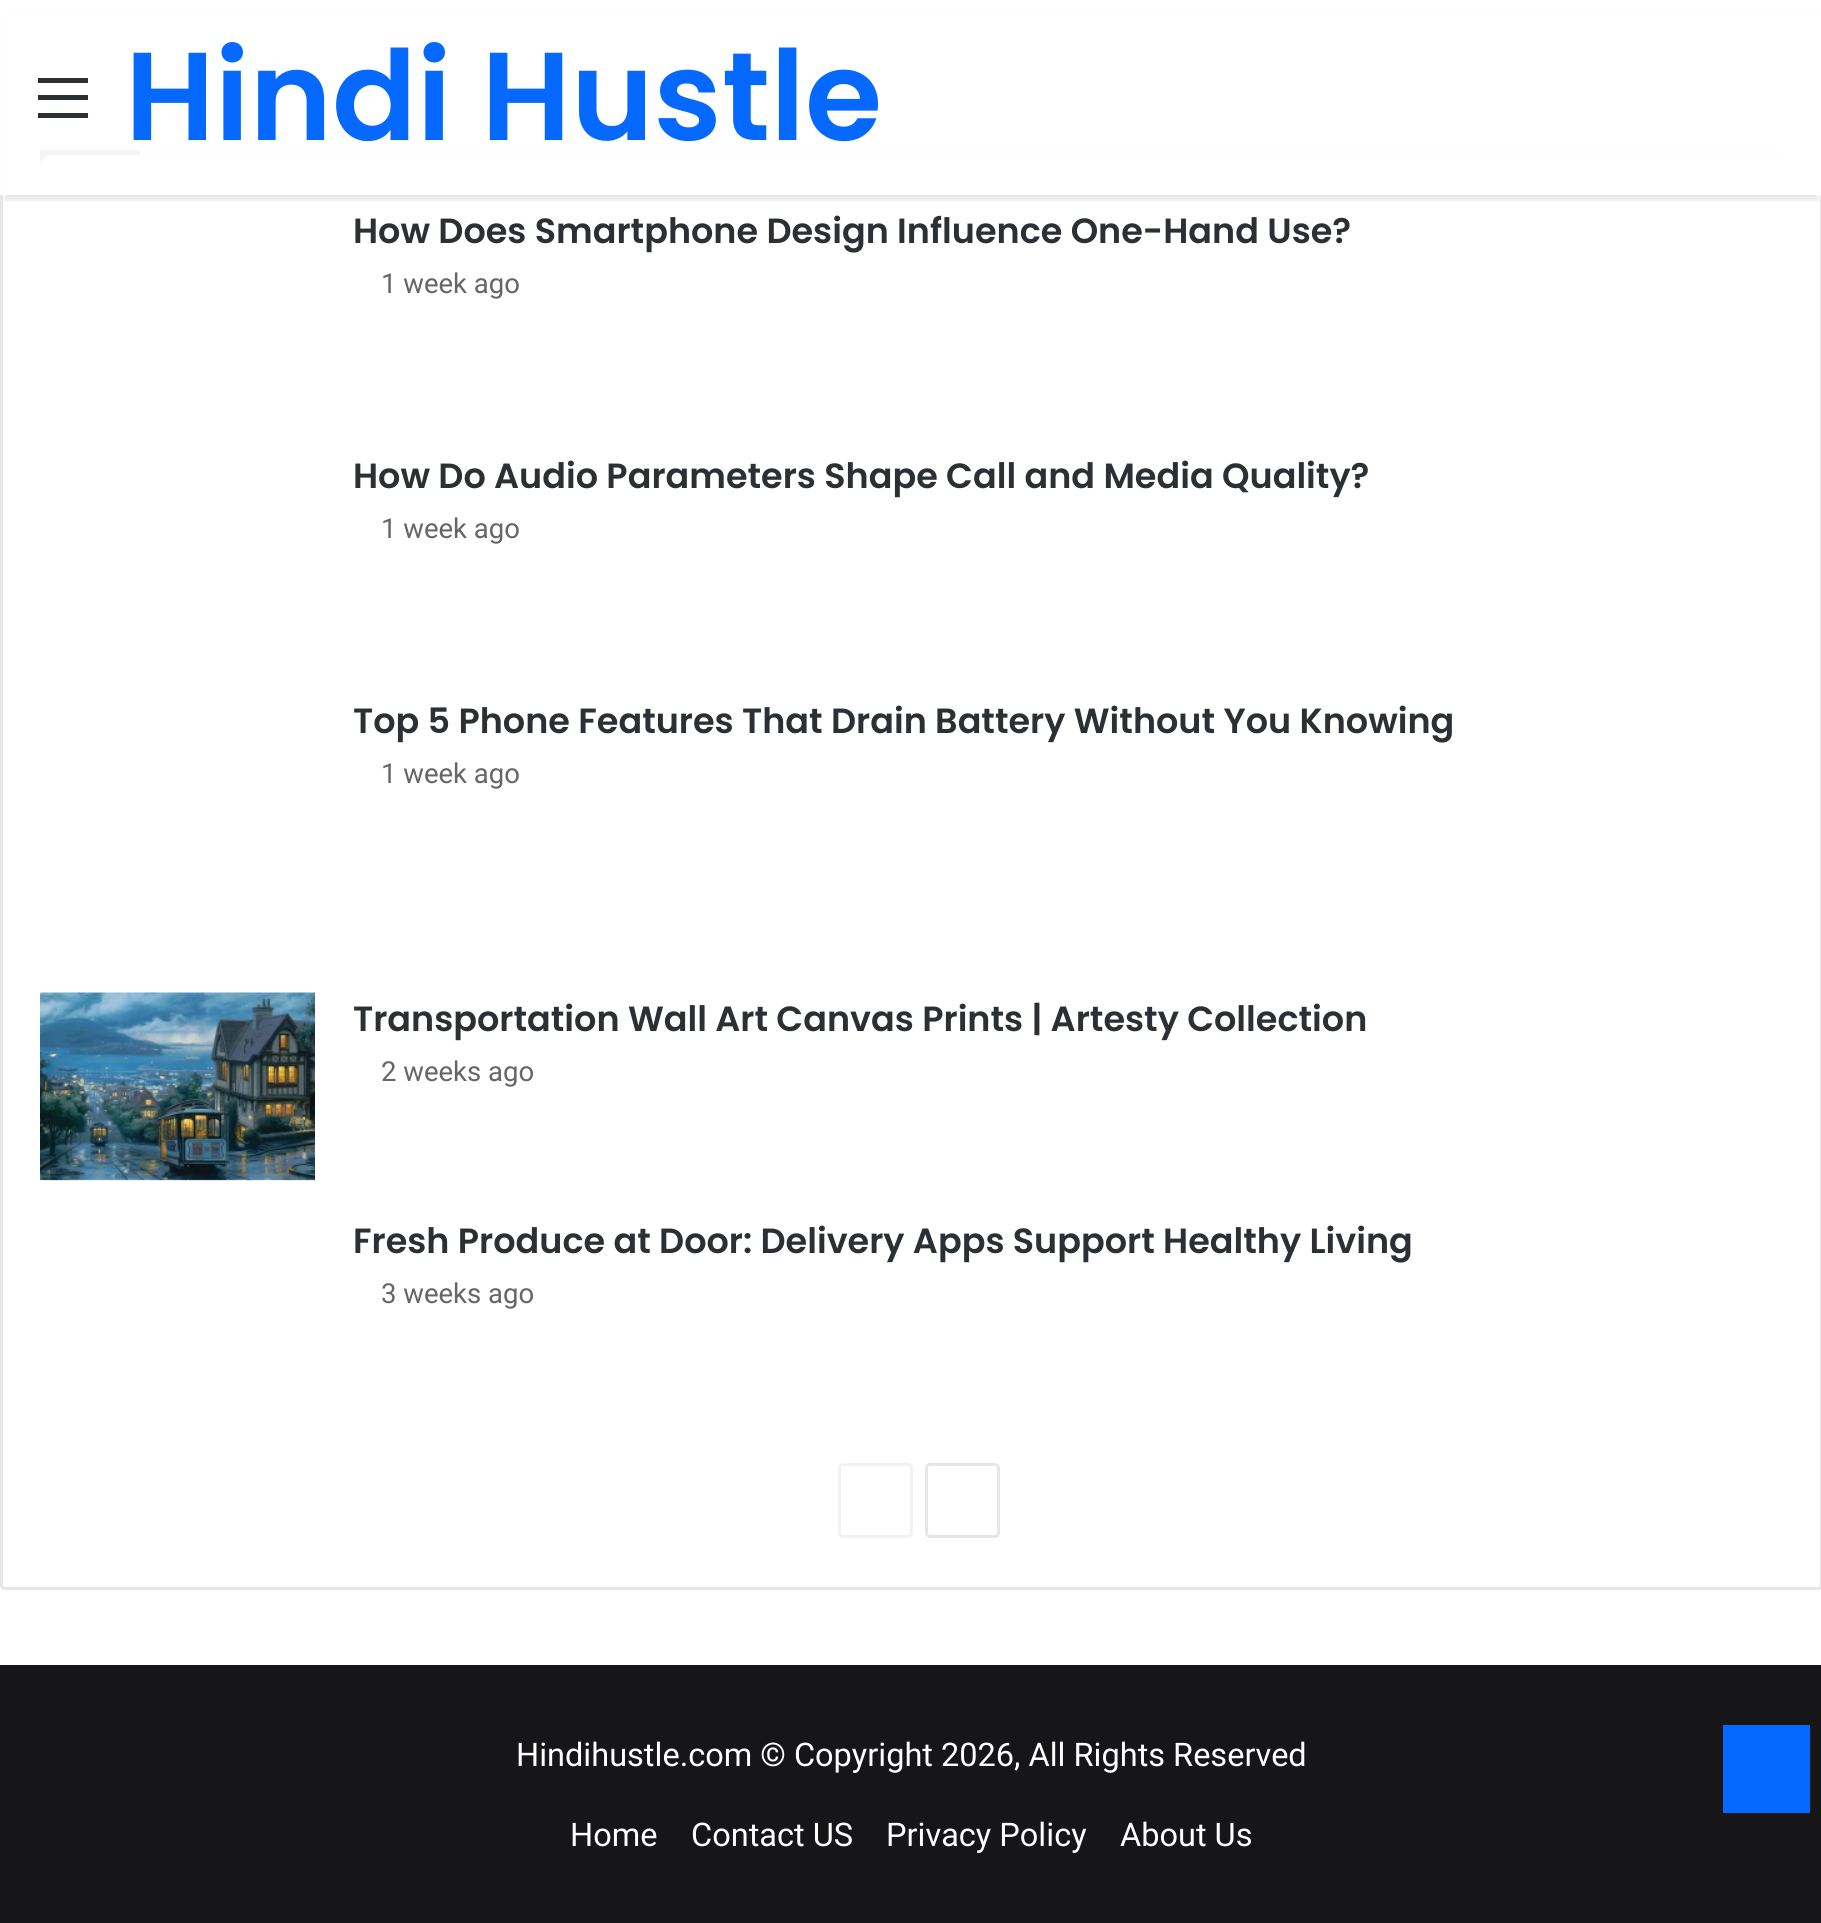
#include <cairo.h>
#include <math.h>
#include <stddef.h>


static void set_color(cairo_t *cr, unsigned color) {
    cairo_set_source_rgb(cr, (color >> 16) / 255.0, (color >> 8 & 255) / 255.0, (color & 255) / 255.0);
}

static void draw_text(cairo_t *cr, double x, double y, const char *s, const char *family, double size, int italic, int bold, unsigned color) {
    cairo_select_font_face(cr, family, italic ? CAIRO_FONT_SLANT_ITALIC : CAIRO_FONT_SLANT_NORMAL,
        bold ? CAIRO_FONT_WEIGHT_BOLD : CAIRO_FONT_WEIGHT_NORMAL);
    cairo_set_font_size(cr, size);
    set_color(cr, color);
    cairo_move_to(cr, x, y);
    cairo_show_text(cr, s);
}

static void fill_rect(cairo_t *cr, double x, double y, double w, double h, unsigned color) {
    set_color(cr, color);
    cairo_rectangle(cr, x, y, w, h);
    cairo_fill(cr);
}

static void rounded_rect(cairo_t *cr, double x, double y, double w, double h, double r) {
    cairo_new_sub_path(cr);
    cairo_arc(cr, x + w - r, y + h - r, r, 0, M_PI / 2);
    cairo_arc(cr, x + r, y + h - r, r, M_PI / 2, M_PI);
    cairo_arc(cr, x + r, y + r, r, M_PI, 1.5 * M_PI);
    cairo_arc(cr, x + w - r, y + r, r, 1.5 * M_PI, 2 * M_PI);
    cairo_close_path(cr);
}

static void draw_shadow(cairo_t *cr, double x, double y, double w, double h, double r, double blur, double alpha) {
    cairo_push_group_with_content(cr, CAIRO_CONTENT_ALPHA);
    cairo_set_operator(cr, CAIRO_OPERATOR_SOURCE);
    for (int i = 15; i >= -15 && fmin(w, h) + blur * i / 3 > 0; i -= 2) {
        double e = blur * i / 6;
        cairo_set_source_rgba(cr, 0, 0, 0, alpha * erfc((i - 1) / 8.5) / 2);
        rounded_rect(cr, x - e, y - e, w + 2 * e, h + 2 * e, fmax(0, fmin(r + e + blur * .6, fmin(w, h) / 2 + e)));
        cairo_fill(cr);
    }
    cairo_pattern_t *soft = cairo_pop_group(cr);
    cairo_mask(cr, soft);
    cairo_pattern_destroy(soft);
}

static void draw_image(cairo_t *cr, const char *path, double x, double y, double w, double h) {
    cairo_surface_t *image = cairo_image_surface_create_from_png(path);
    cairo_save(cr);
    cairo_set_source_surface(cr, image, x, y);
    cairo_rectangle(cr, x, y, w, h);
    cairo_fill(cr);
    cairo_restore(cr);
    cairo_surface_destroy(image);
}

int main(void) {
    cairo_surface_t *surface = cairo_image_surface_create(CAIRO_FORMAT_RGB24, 1821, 1923);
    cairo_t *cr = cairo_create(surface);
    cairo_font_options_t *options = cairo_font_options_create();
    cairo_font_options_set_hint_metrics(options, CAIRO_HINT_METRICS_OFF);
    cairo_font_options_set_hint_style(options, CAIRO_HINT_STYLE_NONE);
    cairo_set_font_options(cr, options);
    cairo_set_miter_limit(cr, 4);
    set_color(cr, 0xFFFFFF);
    cairo_paint(cr);
    rounded_rect(cr, 1.5, 9.5, 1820, 1579, 3.5);
    set_color(cr, 0xE6E6E6);
    cairo_set_line_width(cr, 3);
    cairo_stroke(cr);
    fill_rect(cr, 140, 150, 1643, 5, 0xE6E6E6);
    set_color(cr, 0x2C2F34);
    cairo_new_path(cr);
    cairo_move_to(cr, 40, 150);
    cairo_line_to(cr, 52.5, 150);
    cairo_line_to(cr, 40, 162.5);
    cairo_close_path(cr);
    cairo_fill(cr);
    fill_rect(cr, 40, 150, 100, 5, 0x2C2F34);
    cairo_save(cr);
    cairo_rectangle(cr, 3, 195, 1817, 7);
    cairo_clip(cr);
    set_color(cr, 0x000000);
    draw_shadow(cr, 5, 15, 1813, 185, 0, 2.5, 0.1);
    cairo_restore(cr);
    cairo_set_source_rgba(cr, 1, 1, 1, 0.95);
    cairo_rectangle(cr, 0, 8, 1821, 187);
    cairo_fill(cr);
    fill_rect(cr, 38, 95, 50, 5, 0x2C2F34);
    fill_rect(cr, 38, 78, 50, 5, 0x2C2F34);
    fill_rect(cr, 38, 113, 50, 5, 0x2C2F34);
    draw_text(cr, 125, 140, "Hindi Hustle", "Poppins SemiBold", 125, 0, 0, 0x0669FF);
    draw_text(cr, 353, 243, "How Does Smartphone Design Influence One-Hand Use?", "Poppins SemiBold", 35, 0, 0, 0x2C2F34);
    draw_text(cr, 381, 293, "1 week ago", "Roboto", 27.5, 0, 0, 0x666666);
    draw_text(cr, 353, 488, "How Do Audio Parameters Shape Call and Media Quality?", "Poppins SemiBold", 35, 0, 0, 0x2C2F34);
    draw_text(cr, 381, 538, "1 week ago", "Roboto", 27.5, 0, 0, 0x666666);
    draw_text(cr, 353, 733, "Top 5 Phone Features That Drain Battery Without You Knowing", "Poppins SemiBold", 35, 0, 0, 0x2C2F34);
    draw_text(cr, 381, 783, "1 week ago", "Roboto", 27.5, 0, 0, 0x666666);
    draw_image(cr, "assets/img1.png", 40, 992, 275, 189);
    draw_text(cr, 353, 1031, "Transportation Wall Art Canvas Prints | Artesty Collection", "Poppins SemiBold", 35, 0, 0, 0x2C2F34);
    draw_text(cr, 381, 1081, "2 weeks ago", "Roboto", 27.5, 0, 0, 0x666666);
    draw_text(cr, 353, 1253, "Fresh Produce at Door: Delivery Apps Support Healthy Living", "Poppins SemiBold", 35, 0, 0, 0x2C2F34);
    draw_text(cr, 381, 1303, "3 weeks ago", "Roboto", 27.5, 0, 0, 0x666666);
    rounded_rect(cr, 839.5, 1464.5, 72, 72, 3.5);
    set_color(cr, 0xF2F2F2);
    cairo_stroke(cr);
    rounded_rect(cr, 926.5, 1464.5, 72, 72, 3.5);
    set_color(cr, 0xE6E6E6);
    cairo_stroke(cr);
    fill_rect(cr, 0, 1665, 1821, 258, 0x161619);
    draw_text(cr, 516, 1766, "Hindihustle.com © Copyright 2026, All Rights Reserved", "Roboto", 32.5, 0, 0, 0xFFFFFF);
    draw_text(cr, 570, 1846, "Home", "Roboto", 32.5, 0, 0, 0xFFFFFF);
    draw_text(cr, 691, 1846, "Contact US", "Roboto", 32.5, 0, 0, 0xFFFFFF);
    draw_text(cr, 886, 1846, "Privacy Policy", "Roboto", 32.5, 0, 0, 0xFFFFFF);
    draw_text(cr, 1120, 1846, "About Us", "Roboto", 32.5, 0, 0, 0xFFFFFF);
    fill_rect(cr, 1723, 1725, 87, 88, 0x0669FF);
    cairo_surface_write_to_png(surface, "output.png");
    cairo_font_options_destroy(options);
    cairo_destroy(cr);
    cairo_surface_destroy(surface);
    return 0;
}
